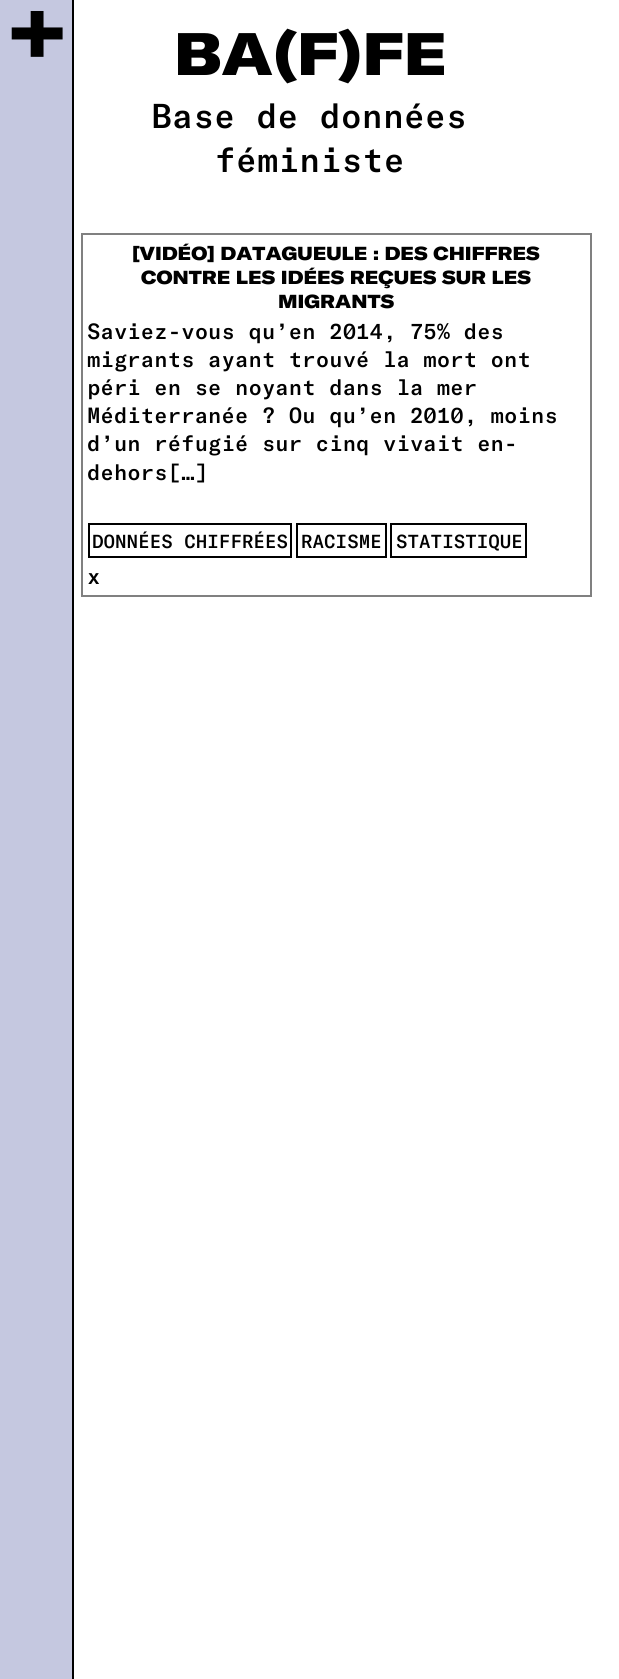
#include <cairo.h>
#include <math.h>
#include <stddef.h>


static void set_color(cairo_t *cr, unsigned color) {
    cairo_set_source_rgb(cr, (color >> 16) / 255.0, (color >> 8 & 255) / 255.0, (color & 255) / 255.0);
}

static void draw_text(cairo_t *cr, double x, double y, const char *s, const char *family, double size, int italic, int bold, unsigned color) {
    cairo_select_font_face(cr, family, italic ? CAIRO_FONT_SLANT_ITALIC : CAIRO_FONT_SLANT_NORMAL,
        bold ? CAIRO_FONT_WEIGHT_BOLD : CAIRO_FONT_WEIGHT_NORMAL);
    cairo_set_font_size(cr, size);
    set_color(cr, color);
    cairo_move_to(cr, x, y);
    cairo_show_text(cr, s);
}

static void fill_rect(cairo_t *cr, double x, double y, double w, double h, unsigned color) {
    set_color(cr, color);
    cairo_rectangle(cr, x, y, w, h);
    cairo_fill(cr);
}

int main(void) {
    cairo_surface_t *surface = cairo_image_surface_create(CAIRO_FORMAT_RGB24, 619, 1679);
    cairo_t *cr = cairo_create(surface);
    cairo_font_options_t *options = cairo_font_options_create();
    cairo_font_options_set_hint_metrics(options, CAIRO_HINT_METRICS_OFF);
    cairo_font_options_set_hint_style(options, CAIRO_HINT_STYLE_NONE);
    cairo_set_font_options(cr, options);
    cairo_set_miter_limit(cr, 4);
    set_color(cr, 0xFFFFFF);
    cairo_paint(cr);
    fill_rect(cr, 0, 0, 72, 1679, 0xC5C8E0);
    fill_rect(cr, 72, 0, 2, 1679, 0x000000);
    draw_text(cr, 8, 64, "+", "GT America Black", 93, 0, 0, 0x000000);
    draw_text(cr, 174, 75, "BA(F)FE", "GT America Black", 59, 0, 0, 0x000000);
    draw_text(cr, 151, 128, "Base de données", "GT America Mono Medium", 34, 0, 0, 0x000000);
    draw_text(cr, 215, 172, "féministe", "GT America Mono Medium", 34, 0, 0, 0x000000);
    cairo_rectangle(cr, 82, 234, 509, 362);
    set_color(cr, 0x808080);
    cairo_stroke(cr);
    draw_text(cr, 132, 260, "[VIDÉO] DATAGUEULE : DES CHIFFRES", "GT America Black", 18.6, 0, 0, 0x000000);
    draw_text(cr, 141, 284, "CONTRE LES IDÉES REÇUES SUR LES", "GT America Black", 18.6, 0, 0, 0x000000);
    draw_text(cr, 278, 308, "MIGRANTS", "GT America Black", 18.6, 0, 0, 0x000000);
    draw_text(cr, 87, 339, "Saviez-vous qu’en 2014, 75% des", "GT America Mono Medium", 21.7, 0, 0, 0x000000);
    draw_text(cr, 87, 367, "migrants ayant trouvé la mort ont", "GT America Mono Medium", 21.7, 0, 0, 0x000000);
    draw_text(cr, 87, 395, "péri en se noyant dans la mer", "GT America Mono Medium", 21.7, 0, 0, 0x000000);
    draw_text(cr, 87, 423, "Méditerranée ? Ou qu’en 2010, moins", "GT America Mono Medium", 21.7, 0, 0, 0x000000);
    draw_text(cr, 87, 451, "d’un réfugié sur cinq vivait en-", "GT America Mono Medium", 21.7, 0, 0, 0x000000);
    draw_text(cr, 87, 480, "dehors[…]", "GT America Mono Medium", 21.7, 0, 0, 0x000000);
    cairo_rectangle(cr, 89, 524, 202, 33);
    cairo_stroke(cr);
    draw_text(cr, 92, 548, "DONNÉES CHIFFRÉES", "GT America Mono Medium", 18.6, 0, 0, 0x000000);
    cairo_rectangle(cr, 297, 524, 89, 33);
    cairo_stroke(cr);
    draw_text(cr, 301, 548, "RACISME", "GT America Mono Medium", 18.6, 0, 0, 0x000000);
    cairo_rectangle(cr, 391, 524, 135, 33);
    cairo_stroke(cr);
    draw_text(cr, 396, 548, "STATISTIQUE", "GT America Mono Medium", 18.6, 0, 0, 0x000000);
    draw_text(cr, 87, 584, "x", "GT America Mono Medium", 21.7, 0, 0, 0x000000);
    cairo_surface_write_to_png(surface, "output.png");
    cairo_font_options_destroy(options);
    cairo_destroy(cr);
    cairo_surface_destroy(surface);
    return 0;
}
